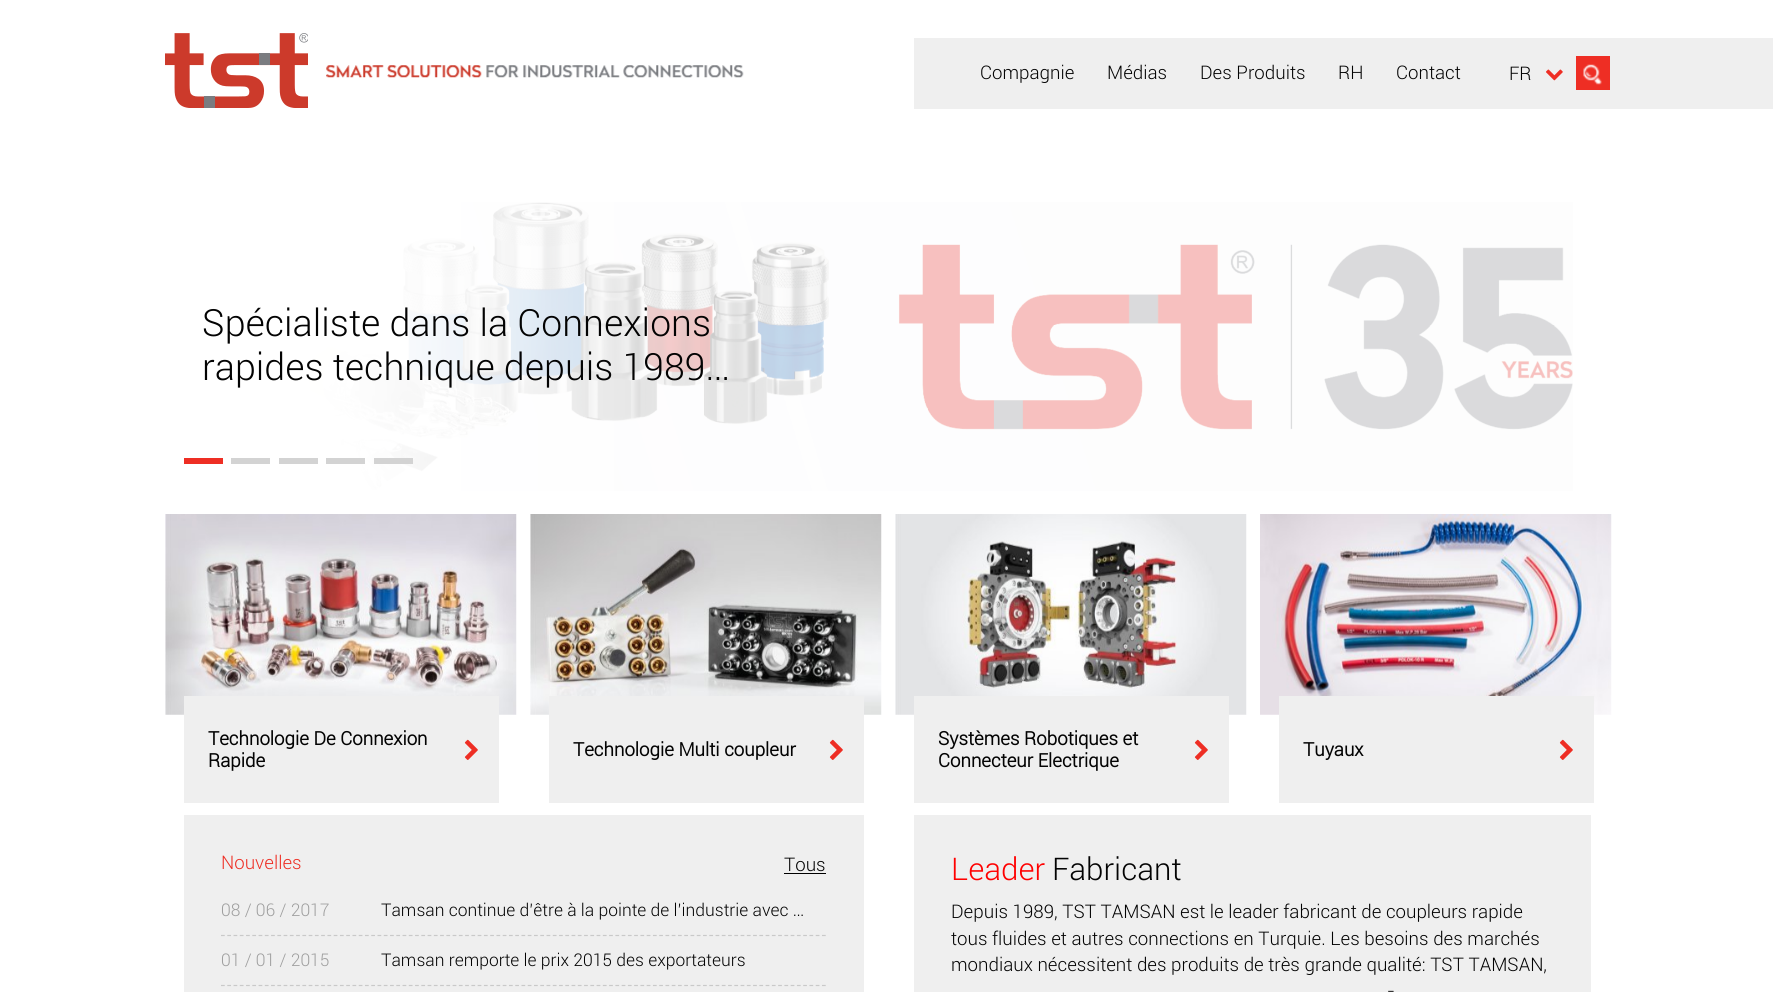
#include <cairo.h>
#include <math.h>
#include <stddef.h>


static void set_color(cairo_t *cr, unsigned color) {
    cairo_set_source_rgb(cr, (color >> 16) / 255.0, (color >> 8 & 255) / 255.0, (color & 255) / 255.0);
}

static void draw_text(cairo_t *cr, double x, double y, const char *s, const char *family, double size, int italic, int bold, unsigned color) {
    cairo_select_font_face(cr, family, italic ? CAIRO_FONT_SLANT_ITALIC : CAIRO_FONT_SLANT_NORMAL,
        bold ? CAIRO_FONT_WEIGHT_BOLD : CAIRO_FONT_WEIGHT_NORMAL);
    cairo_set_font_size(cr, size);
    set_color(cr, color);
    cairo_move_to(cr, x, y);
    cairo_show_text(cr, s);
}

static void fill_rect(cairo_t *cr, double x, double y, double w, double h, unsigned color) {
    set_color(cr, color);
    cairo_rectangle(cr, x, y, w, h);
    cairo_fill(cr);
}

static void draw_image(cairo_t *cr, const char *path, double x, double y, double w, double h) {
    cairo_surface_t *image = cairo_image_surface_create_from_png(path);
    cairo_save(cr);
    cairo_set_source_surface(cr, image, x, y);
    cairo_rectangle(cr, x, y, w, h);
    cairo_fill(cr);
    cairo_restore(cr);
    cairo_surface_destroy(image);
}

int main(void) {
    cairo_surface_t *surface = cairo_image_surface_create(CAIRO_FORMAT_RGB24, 1773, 992);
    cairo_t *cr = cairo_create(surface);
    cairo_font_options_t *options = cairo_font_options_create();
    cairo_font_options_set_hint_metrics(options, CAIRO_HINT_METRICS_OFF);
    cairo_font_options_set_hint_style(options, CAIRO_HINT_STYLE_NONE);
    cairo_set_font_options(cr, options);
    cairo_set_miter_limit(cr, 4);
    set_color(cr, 0xFFFFFF);
    cairo_paint(cr);
    fill_rect(cr, 914, 38, 859, 71, 0xEFEFEF);
    draw_image(cr, "assets/img1.png", 165, 33, 143, 75);
    draw_image(cr, "assets/img2.png", 326, 65, 418, 13);
    draw_text(cr, 980, 79, "Compagnie", "Roboto Light", 18.75, 0, 0, 0x030303);
    draw_text(cr, 1107, 79, "Médias", "Roboto Light", 18.75, 0, 0, 0x030303);
    draw_text(cr, 1200, 79, "Des Produits", "Roboto Light", 18.75, 0, 0, 0x030303);
    draw_text(cr, 1338, 79, "RH", "Roboto Light", 18.75, 0, 0, 0x030303);
    draw_text(cr, 1396, 79, "Contact", "Roboto Light", 18.75, 0, 0, 0x030303);
    draw_text(cr, 1509, 80, "FR", "Roboto Light", 18.75, 0, 0, 0x030303);
    draw_image(cr, "assets/img3.png", 1546, 69, 17, 12);
    fill_rect(cr, 1576, 56, 34, 34, 0xEE2E24);
    draw_image(cr, "assets/img4.png", 1583, 64, 19, 21);
    draw_image(cr, "assets/img6.png", 286, 202, 1287, 289);
    draw_image(cr, "assets/img5.png", 250, 202, 450, 289);
    draw_text(cr, 202, 336, "Spécialiste dans la Connexions", "Roboto Light", 37.5, 0, 0, 0x030303);
    draw_text(cr, 202, 380, "rapides technique depuis 1989…", "Roboto Light", 37.5, 0, 0, 0x030303);
    fill_rect(cr, 184, 458, 39, 6, 0xEE2E24);
    fill_rect(cr, 231, 458, 39, 6, 0xD3D3D3);
    fill_rect(cr, 279, 458, 39, 6, 0xD3D3D3);
    fill_rect(cr, 326, 458, 39, 6, 0xD3D3D3);
    fill_rect(cr, 374, 458, 39, 6, 0xD3D3D3);
    draw_image(cr, "assets/img7.png", 165, 514, 352, 201);
    fill_rect(cr, 184, 696, 315, 107, 0xEFEFEF);
    draw_text(cr, 208, 745, "Technologie De Connexion", "Roboto", 18.75, 0, 1, 0x030303);
    draw_text(cr, 208, 767, "Rapide", "Roboto", 18.75, 0, 1, 0x030303);
    draw_image(cr, "assets/img8.png", 464, 739, 14, 21);
    draw_image(cr, "assets/img9.png", 530, 514, 352, 201);
    fill_rect(cr, 549, 696, 315, 107, 0xEFEFEF);
    draw_text(cr, 573, 756, "Technologie Multi coupleur", "Roboto", 18.75, 0, 1, 0x030303);
    draw_image(cr, "assets/img8.png", 829, 739, 14, 21);
    draw_image(cr, "assets/img10.png", 895, 514, 352, 201);
    fill_rect(cr, 914, 696, 315, 107, 0xEFEFEF);
    draw_text(cr, 938, 745, "Systèmes Robotiques et", "Roboto", 18.75, 0, 1, 0x030303);
    draw_text(cr, 938, 767, "Connecteur Electrique", "Roboto", 18.75, 0, 1, 0x030303);
    draw_image(cr, "assets/img8.png", 1194, 739, 14, 21);
    draw_image(cr, "assets/img11.png", 1260, 514, 352, 201);
    fill_rect(cr, 1279, 696, 315, 107, 0xEFEFEF);
    draw_text(cr, 1303, 756, "Tuyaux", "Roboto", 18.75, 0, 1, 0x030303);
    draw_image(cr, "assets/img8.png", 1559, 739, 14, 21);
    fill_rect(cr, 184, 815, 680, 177, 0xEFEFEF);
    draw_text(cr, 221, 869, "Nouvelles", "Roboto Light", 18.75, 0, 0, 0xEE2E24);
    draw_text(cr, 784, 871, "Tous", "Roboto Light", 18.75, 0, 0, 0x030303);
    fill_rect(cr, 784, 873, 42, 1, 0x000000);
    cairo_new_path(cr);
    cairo_move_to(cr, 221, 935.5);
    cairo_line_to(cr, 826, 935.5);
    set_color(cr, 0xC9C9C9);
    cairo_set_line_width(cr, 1.2);
    cairo_set_dash(cr, (double[]){3.75, 2.51}, 2, 0);
    cairo_stroke(cr);
    draw_text(cr, 221, 916, "08 / 06 / 2017", "Roboto Light", 17.5, 0, 0, 0x9F9F9F);
    draw_text(cr, 381, 916, "Tamsan continue d’être à la pointe de l’industrie avec …", "Roboto Light", 17.5, 0, 0, 0x030303);
    cairo_new_path(cr);
    cairo_move_to(cr, 221, 985.5);
    cairo_line_to(cr, 826, 985.5);
    set_color(cr, 0xC9C9C9);
    cairo_stroke(cr);
    draw_text(cr, 221, 966, "01 / 01 / 2015", "Roboto Light", 17.5, 0, 0, 0x9F9F9F);
    draw_text(cr, 381, 966, "Tamsan remporte le prix 2015 des exportateurs", "Roboto Light", 17.5, 0, 0, 0x030303);
    fill_rect(cr, 914, 815, 677, 177, 0xEFEFEF);
    draw_text(cr, 951, 880, "Leader", "Roboto Light", 31.25, 0, 0, 0xFF0000);
    draw_text(cr, 1052, 880, "Fabricant", "Roboto Light", 31.25, 0, 0, 0x030303);
    draw_text(cr, 951, 918, "Depuis 1989, TST TAMSAN est le leader fabricant de coupleurs rapide", "Roboto Light", 18.75, 0, 0, 0x030303);
    draw_text(cr, 951, 945, "tous fluides et autres connections en Turquie. Les besoins des marchés", "Roboto Light", 18.75, 0, 0, 0x030303);
    draw_text(cr, 951, 971, "mondiaux nécessitent des produits de très grande qualité: TST TAMSAN,", "Roboto Light", 18.75, 0, 0, 0x030303);
    draw_text(cr, 1387, 997, "-", "Roboto Light", 18.75, 0, 0, 0x030303);
    cairo_surface_write_to_png(surface, "output.png");
    cairo_font_options_destroy(options);
    cairo_destroy(cr);
    cairo_surface_destroy(surface);
    return 0;
}
